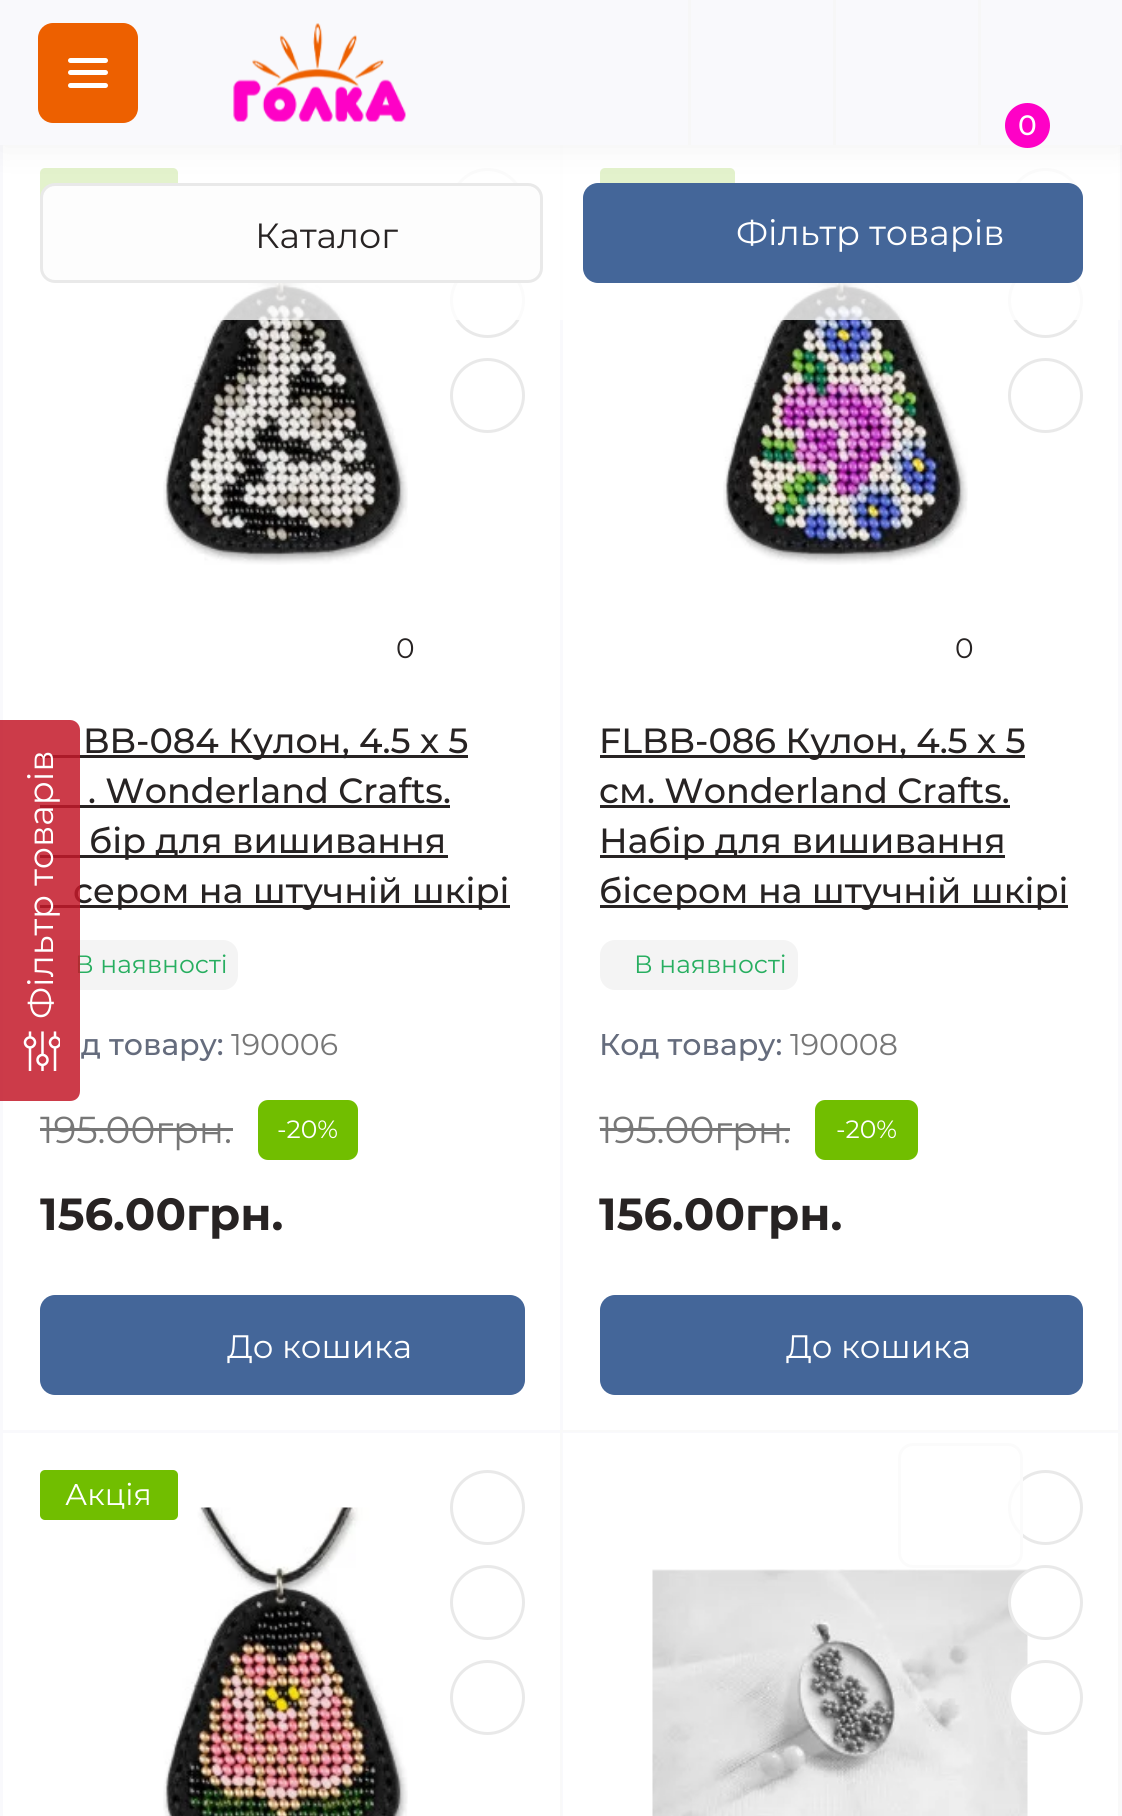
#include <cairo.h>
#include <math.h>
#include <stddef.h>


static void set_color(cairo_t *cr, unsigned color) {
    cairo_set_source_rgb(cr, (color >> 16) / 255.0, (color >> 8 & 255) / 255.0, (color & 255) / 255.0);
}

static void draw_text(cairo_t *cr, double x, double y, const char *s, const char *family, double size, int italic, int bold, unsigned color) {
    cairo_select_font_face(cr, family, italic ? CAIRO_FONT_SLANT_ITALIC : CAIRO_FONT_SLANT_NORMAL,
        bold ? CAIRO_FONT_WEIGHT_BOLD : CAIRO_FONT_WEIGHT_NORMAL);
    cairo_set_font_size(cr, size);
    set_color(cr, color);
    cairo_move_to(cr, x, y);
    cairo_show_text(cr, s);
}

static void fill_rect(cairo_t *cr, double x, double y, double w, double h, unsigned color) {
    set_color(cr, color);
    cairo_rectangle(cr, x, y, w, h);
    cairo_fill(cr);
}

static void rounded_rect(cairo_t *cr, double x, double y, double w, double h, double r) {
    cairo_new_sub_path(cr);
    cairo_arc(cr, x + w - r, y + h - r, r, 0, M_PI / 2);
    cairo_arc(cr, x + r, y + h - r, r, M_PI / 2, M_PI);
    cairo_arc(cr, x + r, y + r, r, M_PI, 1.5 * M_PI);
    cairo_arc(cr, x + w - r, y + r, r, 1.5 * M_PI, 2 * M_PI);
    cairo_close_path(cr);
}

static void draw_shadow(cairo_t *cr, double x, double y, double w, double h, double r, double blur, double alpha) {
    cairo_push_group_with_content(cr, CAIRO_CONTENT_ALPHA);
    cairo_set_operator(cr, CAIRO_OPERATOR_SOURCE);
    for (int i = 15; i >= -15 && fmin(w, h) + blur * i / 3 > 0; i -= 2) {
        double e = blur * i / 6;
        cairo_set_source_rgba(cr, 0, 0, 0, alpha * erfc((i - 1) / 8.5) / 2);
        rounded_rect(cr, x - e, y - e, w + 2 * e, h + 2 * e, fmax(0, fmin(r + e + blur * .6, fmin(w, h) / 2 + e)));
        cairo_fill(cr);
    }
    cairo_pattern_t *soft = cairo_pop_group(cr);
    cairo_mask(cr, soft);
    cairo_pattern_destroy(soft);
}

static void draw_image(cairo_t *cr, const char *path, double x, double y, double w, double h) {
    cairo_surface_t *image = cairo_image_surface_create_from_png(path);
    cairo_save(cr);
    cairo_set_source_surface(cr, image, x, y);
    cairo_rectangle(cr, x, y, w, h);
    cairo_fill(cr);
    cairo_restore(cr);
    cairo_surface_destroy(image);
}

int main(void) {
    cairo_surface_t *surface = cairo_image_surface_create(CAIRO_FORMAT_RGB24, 1122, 1816);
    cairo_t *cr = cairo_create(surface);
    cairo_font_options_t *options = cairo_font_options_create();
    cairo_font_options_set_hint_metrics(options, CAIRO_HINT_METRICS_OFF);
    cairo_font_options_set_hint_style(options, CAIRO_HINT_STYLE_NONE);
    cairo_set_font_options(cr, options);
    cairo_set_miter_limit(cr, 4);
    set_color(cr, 0xFFFFFF);
    cairo_paint(cr);
    cairo_rectangle(cr, 1.5, -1.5, 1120, 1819);
    set_color(cr, 0xF9F9FC);
    cairo_set_line_width(cr, 3);
    cairo_stroke(cr);
    cairo_set_fill_rule(cr, CAIRO_FILL_RULE_EVEN_ODD);
    cairo_new_path(cr);
    cairo_move_to(cr, 0, 128);
    cairo_line_to(cr, 0, 1433);
    cairo_line_to(cr, 563, 1433);
    cairo_line_to(cr, 563, 128);
    cairo_close_path(cr);
    cairo_move_to(cr, 2, 130);
    cairo_line_to(cr, 2, 1432);
    cairo_line_to(cr, 562, 1432);
    cairo_line_to(cr, 562, 130);
    cairo_close_path(cr);
    cairo_fill(cr);
    cairo_save(cr);
    cairo_set_fill_rule(cr, CAIRO_FILL_RULE_WINDING);
    cairo_rectangle(cr, 3, 130, 560, 1303);
    cairo_clip(cr);
    cairo_set_fill_rule(cr, CAIRO_FILL_RULE_EVEN_ODD);
    cairo_new_path(cr);
    cairo_move_to(cr, -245, -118);
    cairo_line_to(cr, 810, -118);
    cairo_line_to(cr, 810, 1680);
    cairo_line_to(cr, -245, 1680);
    cairo_close_path(cr);
    cairo_move_to(cr, 0, 128);
    cairo_line_to(cr, 560, 128);
    cairo_line_to(cr, 560, 1430);
    cairo_line_to(cr, 0, 1430);
    cairo_close_path(cr);
    cairo_fill(cr);
    cairo_restore(cr);
    set_color(cr, 0x71BE00);
    rounded_rect(cr, 40, 168, 138, 50, 5);
    cairo_fill(cr);
    draw_image(cr, "assets/img2.png", 163, 283, 245, 282);
    cairo_arc(cr, 487.5, 205.5, 36, 0, 2 * M_PI);
    set_color(cr, 0xE9E9E9);
    cairo_stroke(cr);
    cairo_arc(cr, 487.5, 300.5, 36, 0, 2 * M_PI);
    cairo_stroke(cr);
    set_color(cr, 0xF9F9FC);
    cairo_set_fill_rule(cr, CAIRO_FILL_RULE_WINDING);
    cairo_new_path(cr);
    cairo_move_to(cr, 560, 128);
    cairo_line_to(cr, 560, 1433);
    cairo_line_to(cr, 1120, 1433);
    cairo_line_to(cr, 1120, 1432);
    cairo_line_to(cr, 562, 1432);
    cairo_line_to(cr, 562, 130);
    cairo_line_to(cr, 1120, 130);
    cairo_line_to(cr, 1120, 128);
    cairo_close_path(cr);
    cairo_fill(cr);
    cairo_save(cr);
    cairo_rectangle(cr, 563, 130, 557, 1303);
    cairo_clip(cr);
    cairo_set_fill_rule(cr, CAIRO_FILL_RULE_EVEN_ODD);
    cairo_new_path(cr);
    cairo_move_to(cr, 315, -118);
    cairo_line_to(cr, 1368, -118);
    cairo_line_to(cr, 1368, 1680);
    cairo_line_to(cr, 315, 1680);
    cairo_close_path(cr);
    cairo_move_to(cr, 560, 128);
    cairo_line_to(cr, 1118, 128);
    cairo_line_to(cr, 1118, 1430);
    cairo_line_to(cr, 560, 1430);
    cairo_close_path(cr);
    cairo_fill(cr);
    cairo_restore(cr);
    set_color(cr, 0x71BE00);
    rounded_rect(cr, 600, 168, 135, 50, 5);
    cairo_fill(cr);
    draw_image(cr, "assets/img3.png", 723, 283, 245, 282);
    cairo_arc(cr, 1045.5, 205.5, 36, 0, 2 * M_PI);
    set_color(cr, 0xE9E9E9);
    cairo_stroke(cr);
    cairo_arc(cr, 1045.5, 300.5, 36, 0, 2 * M_PI);
    cairo_stroke(cr);
    cairo_set_source_rgba(cr, 1, 1, 1, 0.8);
    cairo_rectangle(cr, 40, 145, 1080, 175);
    cairo_fill(cr);
    set_color(cr, 0xFDFDFD);
    rounded_rect(cr, 41.5, 184.5, 500, 97, 13.5);
    cairo_fill_preserve(cr);
    set_color(cr, 0xE9E9E9);
    cairo_stroke(cr);
    set_color(cr, 0x446699);
    rounded_rect(cr, 583, 183, 500, 100, 15);
    cairo_fill(cr);
    set_color(cr, 0x000000);
    draw_shadow(cr, 0, 0, 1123, 145, 0, 19, 0.06);
    fill_rect(cr, 0, 0, 1122, 145, 0xF9F9FC);
    set_color(cr, 0xED6000);
    rounded_rect(cr, 38, 23, 100, 100, 15);
    cairo_fill(cr);
    set_color(cr, 0xFFFFFF);
    rounded_rect(cr, 68, 58, 40, 5, 2.5);
    cairo_fill(cr);
    rounded_rect(cr, 68, 70, 40, 5, 2.5);
    cairo_fill(cr);
    rounded_rect(cr, 68, 83, 40, 5, 2.5);
    cairo_fill(cr);
    fill_rect(cr, 688, 0, 3, 145, 0xF7F7F7);
    fill_rect(cr, 833, 0, 3, 145, 0xF7F7F7);
    draw_image(cr, "assets/img1.png", 233, 23, 173, 99);
    fill_rect(cr, 978, 0, 3, 145, 0xF7F7F7);
    set_color(cr, 0xFE01C6);
    cairo_arc(cr, 1027.5, 125.5, 22.5, 0, 2 * M_PI);
    cairo_fill(cr);
    draw_text(cr, 1018, 135, "0", "Montserrat Medium", 28, 0, 0, 0xFFFFFF);
    draw_text(cr, 255, 248, "Каталог", "Montserrat", 35, 0, 0, 0x272323);
    draw_text(cr, 736, 245, "Фільтр товарів", "Montserrat", 35, 0, 0, 0xFFFFFF);
    cairo_new_path(cr);
    cairo_arc(cr, 487.5, 395.5, 36, 0, 2 * M_PI);
    set_color(cr, 0xE9E9E9);
    cairo_stroke(cr);
    draw_text(cr, 396, 658, "0", "Montserrat", 28, 0, 0, 0x272323);
    fill_rect(cr, 40, 755, 428, 3, 0x272323);
    draw_text(cr, 83, 753, "BB-084 Кулон, 4.5 х 5", "Montserrat Medium", 35, 0, 0, 0x272323);
    draw_text(cr, 88, 803, ". Wonderland Crafts.", "Montserrat Medium", 35, 0, 0, 0x272323);
    fill_rect(cr, 40, 805, 410, 3, 0x272323);
    fill_rect(cr, 40, 855, 408, 3, 0x272323);
    draw_text(cr, 89, 853, "бір для вишивання", "Montserrat Medium", 35, 0, 0, 0x272323);
    fill_rect(cr, 40, 905, 470, 3, 0x272323);
    draw_text(cr, 73, 903, "сером на штучній шкірі", "Montserrat Medium", 35, 0, 0, 0x272323);
    set_color(cr, 0xF4F4F4);
    rounded_rect(cr, 40, 940, 198, 50, 15);
    cairo_fill(cr);
    draw_text(cr, 75, 973, "В наявності", "Montserrat", 25, 0, 0, 0x27AE60);
    draw_text(cr, 81, 1055, "д товару:", "Montserrat Medium", 30, 0, 0, 0x656C7D);
    draw_text(cr, 231, 1055, "190006", "Montserrat", 30, 0, 0, 0x777777);
    draw_text(cr, 40, 1143, "195.00грн.", "Montserrat", 37.5, 0, 0, 0x777777);
    fill_rect(cr, 40, 1128, 193, 3, 0x777777);
    set_color(cr, 0x71BE00);
    rounded_rect(cr, 258, 1100, 100, 60, 10);
    cairo_fill(cr);
    draw_text(cr, 277, 1138, "-20%", "Montserrat", 25, 0, 0, 0xFFFFFF);
    draw_text(cr, 40, 1230, "156.00грн.", "Montserrat", 45, 0, 1, 0x272323);
    set_color(cr, 0x446699);
    rounded_rect(cr, 40, 1295, 485, 100, 15);
    cairo_fill(cr);
    draw_text(cr, 227, 1358, "До кошика", "Montserrat", 32.5, 0, 0, 0xFFFFFF);
    cairo_new_path(cr);
    cairo_arc(cr, 1045.5, 395.5, 36, 0, 2 * M_PI);
    set_color(cr, 0xE9E9E9);
    cairo_stroke(cr);
    draw_text(cr, 955, 658, "0", "Montserrat", 28, 0, 0, 0x272323);
    fill_rect(cr, 600, 755, 425, 3, 0x272323);
    draw_text(cr, 599, 753, "FLBB-086 Кулон, 4.5 х 5", "Montserrat Medium", 35, 0, 0, 0x272323);
    draw_text(cr, 599, 803, "см. Wonderland Crafts.", "Montserrat Medium", 35, 0, 0, 0x272323);
    fill_rect(cr, 600, 805, 410, 3, 0x272323);
    fill_rect(cr, 600, 855, 405, 3, 0x272323);
    draw_text(cr, 599, 853, "Набір для вишивання", "Montserrat Medium", 35, 0, 0, 0x272323);
    fill_rect(cr, 600, 905, 468, 3, 0x272323);
    draw_text(cr, 599, 903, "бісером на штучній шкірі", "Montserrat Medium", 35, 0, 0, 0x272323);
    set_color(cr, 0xF4F4F4);
    rounded_rect(cr, 600, 940, 198, 50, 15);
    cairo_fill(cr);
    draw_text(cr, 634, 973, "В наявності", "Montserrat", 25, 0, 0, 0x27AE60);
    draw_text(cr, 599, 1055, "Код товару:", "Montserrat Medium", 30, 0, 0, 0x656C7D);
    draw_text(cr, 790, 1055, "190008", "Montserrat", 30, 0, 0, 0x777777);
    draw_text(cr, 599, 1143, "195.00грн.", "Montserrat", 37.5, 0, 0, 0x777777);
    fill_rect(cr, 600, 1128, 190, 3, 0x777777);
    set_color(cr, 0x71BE00);
    rounded_rect(cr, 815, 1100, 103, 60, 10);
    cairo_fill(cr);
    draw_text(cr, 836, 1138, "-20%", "Montserrat", 25, 0, 0, 0xFFFFFF);
    draw_text(cr, 599, 1230, "156.00грн.", "Montserrat", 45, 0, 1, 0x272323);
    set_color(cr, 0x446699);
    rounded_rect(cr, 600, 1295, 483, 100, 15);
    cairo_fill(cr);
    draw_text(cr, 786, 1358, "До кошика", "Montserrat", 32.5, 0, 0, 0xFFFFFF);
    set_color(cr, 0xF9F9FC);
    cairo_new_path(cr);
    cairo_move_to(cr, 0, 1430);
    cairo_line_to(cr, 0, 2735);
    cairo_line_to(cr, 2, 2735);
    cairo_line_to(cr, 2, 1432);
    cairo_line_to(cr, 562, 1432);
    cairo_line_to(cr, 562, 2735);
    cairo_line_to(cr, 563, 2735);
    cairo_line_to(cr, 563, 1430);
    cairo_close_path(cr);
    cairo_fill(cr);
    cairo_save(cr);
    cairo_rectangle(cr, 3, 1433, 560, 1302);
    cairo_clip(cr);
    cairo_set_fill_rule(cr, CAIRO_FILL_RULE_EVEN_ODD);
    cairo_new_path(cr);
    cairo_move_to(cr, -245, 1185);
    cairo_line_to(cr, 810, 1185);
    cairo_line_to(cr, 810, 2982);
    cairo_line_to(cr, -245, 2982);
    cairo_close_path(cr);
    cairo_move_to(cr, 0, 1430);
    cairo_line_to(cr, 560, 1430);
    cairo_line_to(cr, 560, 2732);
    cairo_line_to(cr, 0, 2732);
    cairo_close_path(cr);
    cairo_fill(cr);
    cairo_restore(cr);
    draw_image(cr, "assets/img4.png", 163, 1507, 245, 309);
    set_color(cr, 0x71BE00);
    rounded_rect(cr, 40, 1470, 138, 50, 5);
    cairo_fill(cr);
    draw_text(cr, 65, 1505, "Акція", "Montserrat", 30, 0, 0, 0xFFFFFF);
    cairo_new_path(cr);
    cairo_arc(cr, 487.5, 1507.5, 36, 0, 2 * M_PI);
    set_color(cr, 0xE9E9E9);
    cairo_stroke(cr);
    cairo_arc(cr, 487.5, 1602.5, 36, 0, 2 * M_PI);
    cairo_stroke(cr);
    cairo_arc(cr, 487.5, 1697.5, 36, 0, 2 * M_PI);
    cairo_stroke(cr);
    set_color(cr, 0xF9F9F9);
    cairo_new_path(cr);
    cairo_move_to(cr, 560, 1430);
    cairo_line_to(cr, 560, 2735);
    cairo_line_to(cr, 562, 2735);
    cairo_line_to(cr, 562, 1432);
    cairo_line_to(cr, 1120, 1432);
    cairo_line_to(cr, 1120, 1430);
    cairo_close_path(cr);
    cairo_fill(cr);
    fill_rect(cr, 1118, 1433, 3, 383, 0xF9F9F9);
    draw_image(cr, "assets/img5.png", 652, 1569, 376, 247);
    cairo_arc(cr, 1045.5, 1507.5, 36, 0, 2 * M_PI);
    set_color(cr, 0xE9E9E9);
    cairo_stroke(cr);
    set_color(cr, 0xFFFFFF);
    cairo_arc(cr, 1045.5, 1602.5, 36, 0, 2 * M_PI);
    cairo_fill_preserve(cr);
    set_color(cr, 0xE9E9E9);
    cairo_stroke(cr);
    set_color(cr, 0xFFFFFF);
    cairo_arc(cr, 1045.5, 1697.5, 36, 0, 2 * M_PI);
    cairo_fill_preserve(cr);
    set_color(cr, 0xE9E9E9);
    cairo_stroke(cr);
    cairo_set_source_rgba(cr, 0.765, 0.098, 0.161, 0.85);
    cairo_new_path(cr);
    cairo_move_to(cr, 0, 1101);
    cairo_line_to(cr, 0, 720);
    cairo_line_to(cr, 70, 720);
    cairo_curve_to(cr, 76, 720, 80, 725, 80, 730);
    cairo_line_to(cr, 80, 1091);
    cairo_curve_to(cr, 80, 1097, 76, 1101, 70, 1101);
    cairo_close_path(cr);
    cairo_fill(cr);
    cairo_save(cr);
    cairo_translate(cr, 53, 1019);
    cairo_rotate(cr, -90 * M_PI / 180);
    draw_text(cr, 0, 0, "Фільтр товарів", "Montserrat", 35, 0, 0, 0xFFFFFF);
    cairo_restore(cr);
    draw_image(cr, "assets/img6.png", 23, 1031, 37, 40);
    cairo_set_source_rgba(cr, 1, 1, 1, 0.8);
    rounded_rect(cr, 899.5, 1444.5, 122, 122, 13.5);
    cairo_fill_preserve(cr);
    set_color(cr, 0xFBFBFB);
    cairo_stroke(cr);
    cairo_surface_write_to_png(surface, "output.png");
    cairo_font_options_destroy(options);
    cairo_destroy(cr);
    cairo_surface_destroy(surface);
    return 0;
}
